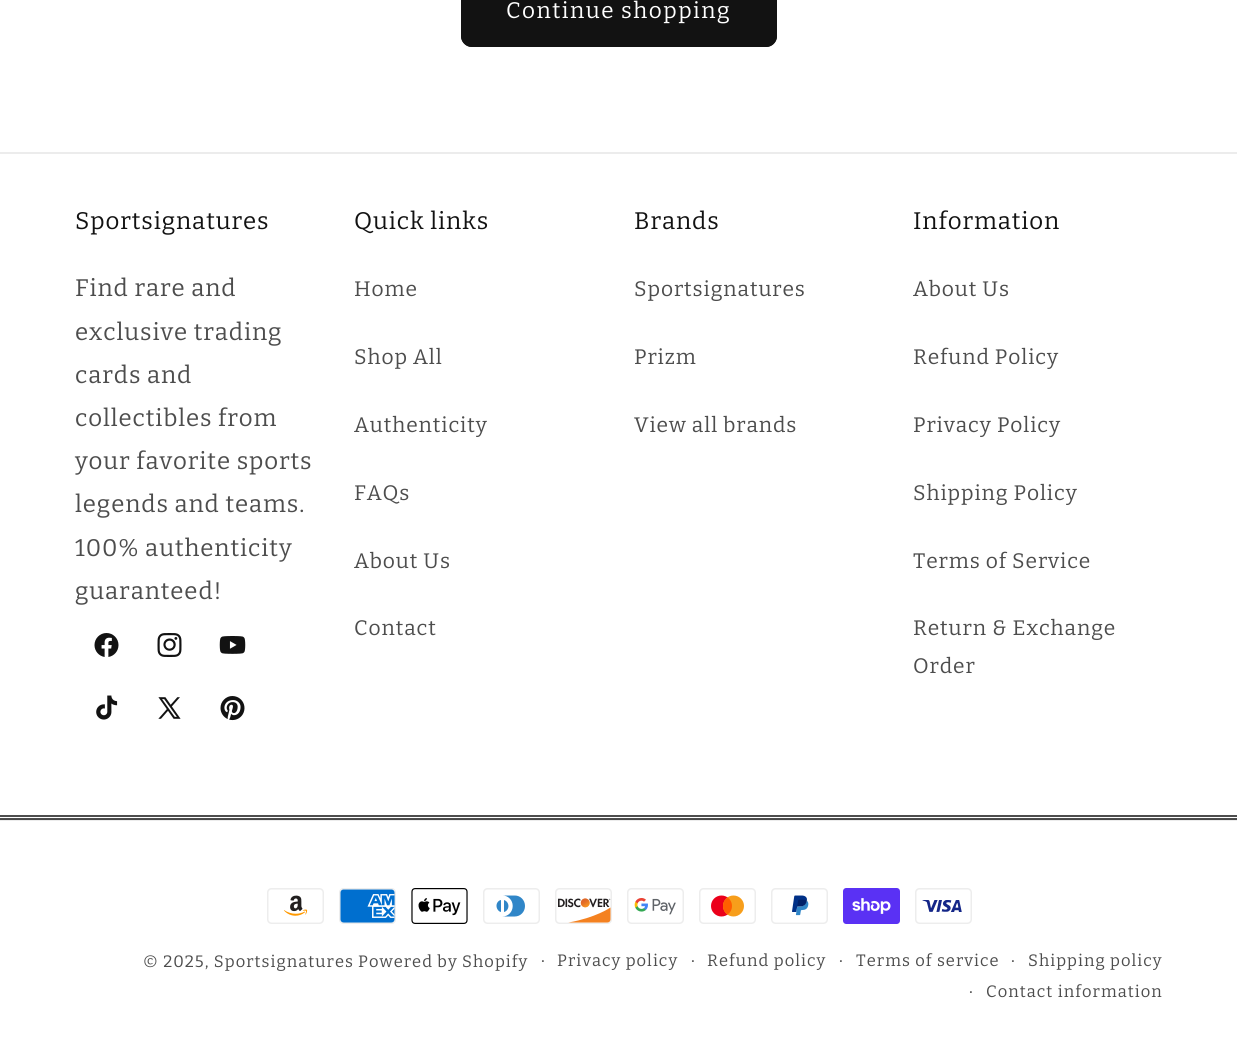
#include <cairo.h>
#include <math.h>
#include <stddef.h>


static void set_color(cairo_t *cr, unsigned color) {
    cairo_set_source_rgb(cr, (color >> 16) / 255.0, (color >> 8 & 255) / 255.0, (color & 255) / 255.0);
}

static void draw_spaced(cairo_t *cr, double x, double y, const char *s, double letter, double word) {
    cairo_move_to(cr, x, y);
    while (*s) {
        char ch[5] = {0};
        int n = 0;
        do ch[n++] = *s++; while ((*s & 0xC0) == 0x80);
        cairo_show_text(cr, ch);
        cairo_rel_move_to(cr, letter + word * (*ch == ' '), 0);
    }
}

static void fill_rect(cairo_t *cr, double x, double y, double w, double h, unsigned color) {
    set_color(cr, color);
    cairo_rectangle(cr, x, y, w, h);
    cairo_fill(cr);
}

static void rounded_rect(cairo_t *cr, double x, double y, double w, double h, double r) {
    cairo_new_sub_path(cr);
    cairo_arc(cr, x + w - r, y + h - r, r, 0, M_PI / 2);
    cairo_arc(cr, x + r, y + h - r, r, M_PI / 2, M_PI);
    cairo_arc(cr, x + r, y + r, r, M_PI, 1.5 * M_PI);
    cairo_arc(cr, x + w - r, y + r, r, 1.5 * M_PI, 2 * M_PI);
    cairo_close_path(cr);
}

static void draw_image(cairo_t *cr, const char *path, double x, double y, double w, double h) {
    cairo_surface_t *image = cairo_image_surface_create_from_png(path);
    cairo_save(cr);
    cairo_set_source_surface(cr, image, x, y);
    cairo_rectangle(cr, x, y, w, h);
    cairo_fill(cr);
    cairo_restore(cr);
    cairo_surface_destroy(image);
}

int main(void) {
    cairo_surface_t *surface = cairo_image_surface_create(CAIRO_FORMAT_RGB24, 1237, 1062);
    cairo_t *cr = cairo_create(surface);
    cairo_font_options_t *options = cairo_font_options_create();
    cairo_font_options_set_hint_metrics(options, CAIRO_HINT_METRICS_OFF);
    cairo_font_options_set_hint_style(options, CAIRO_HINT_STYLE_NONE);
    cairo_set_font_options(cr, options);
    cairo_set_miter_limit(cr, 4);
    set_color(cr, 0xFFFFFF);
    cairo_paint(cr);
    fill_rect(cr, 0, 820, 1237, 1, 0xECECEC);
    set_color(cr, 0x121212);
    rounded_rect(cr, 461, -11, 316, 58, 11);
    cairo_fill(cr);
    rounded_rect(cr, 462, -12, 314, 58, 10);
    cairo_stroke(cr);
    cairo_select_font_face(cr, "Bitter", CAIRO_FONT_SLANT_NORMAL, CAIRO_FONT_WEIGHT_NORMAL);
    cairo_set_font_size(cr, 22.5);
    set_color(cr, 0xFFFFFF);
    draw_spaced(cr, 506, 18, "Continue shopping", 1.5, 0);
    fill_rect(cr, 0, 152, 1237, 2, 0xECECEC);
    fill_rect(cr, 0, 815, 1237, 2, 0x4D4D4D);
    fill_rect(cr, 0, 818, 1237, 1, 0x4D4D4D);
    fill_rect(cr, 0, 819, 1237, 1, 0x484848);
    cairo_set_font_size(cr, 24);
    set_color(cr, 0x121212);
    draw_spaced(cr, 75, 229, "Sportsignatures", 0.9, 0);
    set_color(cr, 0x4D4D4D);
    draw_spaced(cr, 75, 296, "Find rare and", 0.9, 0);
    draw_spaced(cr, 75, 340, "exclusive trading", 0.9, 0);
    draw_spaced(cr, 75, 383, "cards and", 0.9, 0);
    draw_spaced(cr, 75, 426, "collectibles from", 0.9, 0);
    draw_spaced(cr, 75, 469, "your favorite sports", 0.9, 0);
    draw_spaced(cr, 75, 512, "legends and teams.", 0.9, 0);
    draw_spaced(cr, 75, 556, "100% authenticity", 0.9, 0);
    draw_spaced(cr, 75, 599, "guaranteed!", 0.9, 0);
    draw_image(cr, "assets/img1.png", 94, 633, 25, 24);
    draw_image(cr, "assets/img2.png", 157, 633, 25, 24);
    draw_image(cr, "assets/img3.png", 219, 636, 27, 18);
    draw_image(cr, "assets/img4.png", 96, 695, 22, 25);
    draw_image(cr, "assets/img5.png", 158, 697, 23, 22);
    draw_image(cr, "assets/img6.png", 220, 696, 25, 25);
    set_color(cr, 0x121212);
    draw_spaced(cr, 354, 229, "Quick links", 0.9, 0);
    cairo_set_font_size(cr, 21);
    set_color(cr, 0x4D4D4D);
    draw_spaced(cr, 354, 296, "Home", 0.9, 0);
    draw_spaced(cr, 354, 364, "Shop All", 0.9, 0);
    draw_spaced(cr, 354, 432, "Authenticity", 0.9, 0);
    draw_spaced(cr, 354, 500, "FAQs", 0.9, 0);
    draw_spaced(cr, 354, 568, "About Us", 0.9, 0);
    draw_spaced(cr, 354, 635, "Contact", 0.9, 0);
    cairo_set_font_size(cr, 24);
    set_color(cr, 0x121212);
    draw_spaced(cr, 634, 229, "Brands", 0.9, 0);
    cairo_set_font_size(cr, 21);
    set_color(cr, 0x4D4D4D);
    draw_spaced(cr, 634, 296, "Sportsignatures", 0.9, 0);
    draw_spaced(cr, 634, 364, "Prizm", 0.9, 0);
    draw_spaced(cr, 634, 432, "View all brands", 0.9, 0);
    cairo_set_font_size(cr, 24);
    set_color(cr, 0x121212);
    draw_spaced(cr, 913, 229, "Information", 0.9, 0);
    cairo_set_font_size(cr, 21);
    set_color(cr, 0x4D4D4D);
    draw_spaced(cr, 913, 296, "About Us", 0.9, 0);
    draw_spaced(cr, 913, 364, "Refund Policy", 0.9, 0);
    draw_spaced(cr, 913, 432, "Privacy Policy", 0.9, 0);
    draw_spaced(cr, 913, 500, "Shipping Policy", 0.9, 0);
    draw_spaced(cr, 913, 568, "Terms of Service", 0.9, 0);
    draw_spaced(cr, 913, 635, "Return & Exchange", 0.9, 0);
    draw_spaced(cr, 913, 673, "Order", 0.9, 0);
    draw_image(cr, "assets/img7.png", 267, 888, 57, 36);
    draw_image(cr, "assets/img8.png", 339, 888, 57, 36);
    draw_image(cr, "assets/img9.png", 411, 888, 57, 36);
    draw_image(cr, "assets/img10.png", 483, 888, 57, 36);
    draw_image(cr, "assets/img11.png", 555, 888, 57, 36);
    draw_image(cr, "assets/img12.png", 627, 888, 57, 36);
    draw_image(cr, "assets/img13.png", 699, 888, 57, 36);
    draw_image(cr, "assets/img14.png", 771, 888, 57, 36);
    draw_image(cr, "assets/img15.png", 843, 888, 57, 36);
    draw_image(cr, "assets/img16.png", 915, 888, 57, 36);
    cairo_set_font_size(cr, 16.5);
    draw_spaced(cr, 143, 967, "© 2025, Sportsignatures", 1.05, 0);
    draw_spaced(cr, 358, 967, "Powered by Shopify", 1.05, 0);
    cairo_set_font_size(cr, 18);
    draw_spaced(cr, 541, 967, "·", 1.05, 0);
    cairo_set_font_size(cr, 16.5);
    draw_spaced(cr, 557, 966, "Privacy policy", 1.05, 0);
    cairo_set_font_size(cr, 18);
    draw_spaced(cr, 691, 967, "·", 1.05, 0);
    cairo_set_font_size(cr, 16.5);
    draw_spaced(cr, 707, 966, "Refund policy", 1.05, 0);
    cairo_set_font_size(cr, 18);
    draw_spaced(cr, 839, 967, "·", 1.05, 0);
    cairo_set_font_size(cr, 16.5);
    draw_spaced(cr, 856, 966, "Terms of service", 1.05, 0);
    cairo_set_font_size(cr, 18);
    draw_spaced(cr, 1011, 967, "·", 1.05, 0);
    cairo_set_font_size(cr, 16.5);
    draw_spaced(cr, 1028, 966, "Shipping policy", 1.05, 0);
    cairo_set_font_size(cr, 18);
    draw_spaced(cr, 969, 998, "·", 1.05, 0);
    cairo_set_font_size(cr, 16.5);
    draw_spaced(cr, 986, 997, "Contact information", 1.05, 0);
    cairo_surface_write_to_png(surface, "output.png");
    cairo_font_options_destroy(options);
    cairo_destroy(cr);
    cairo_surface_destroy(surface);
    return 0;
}
